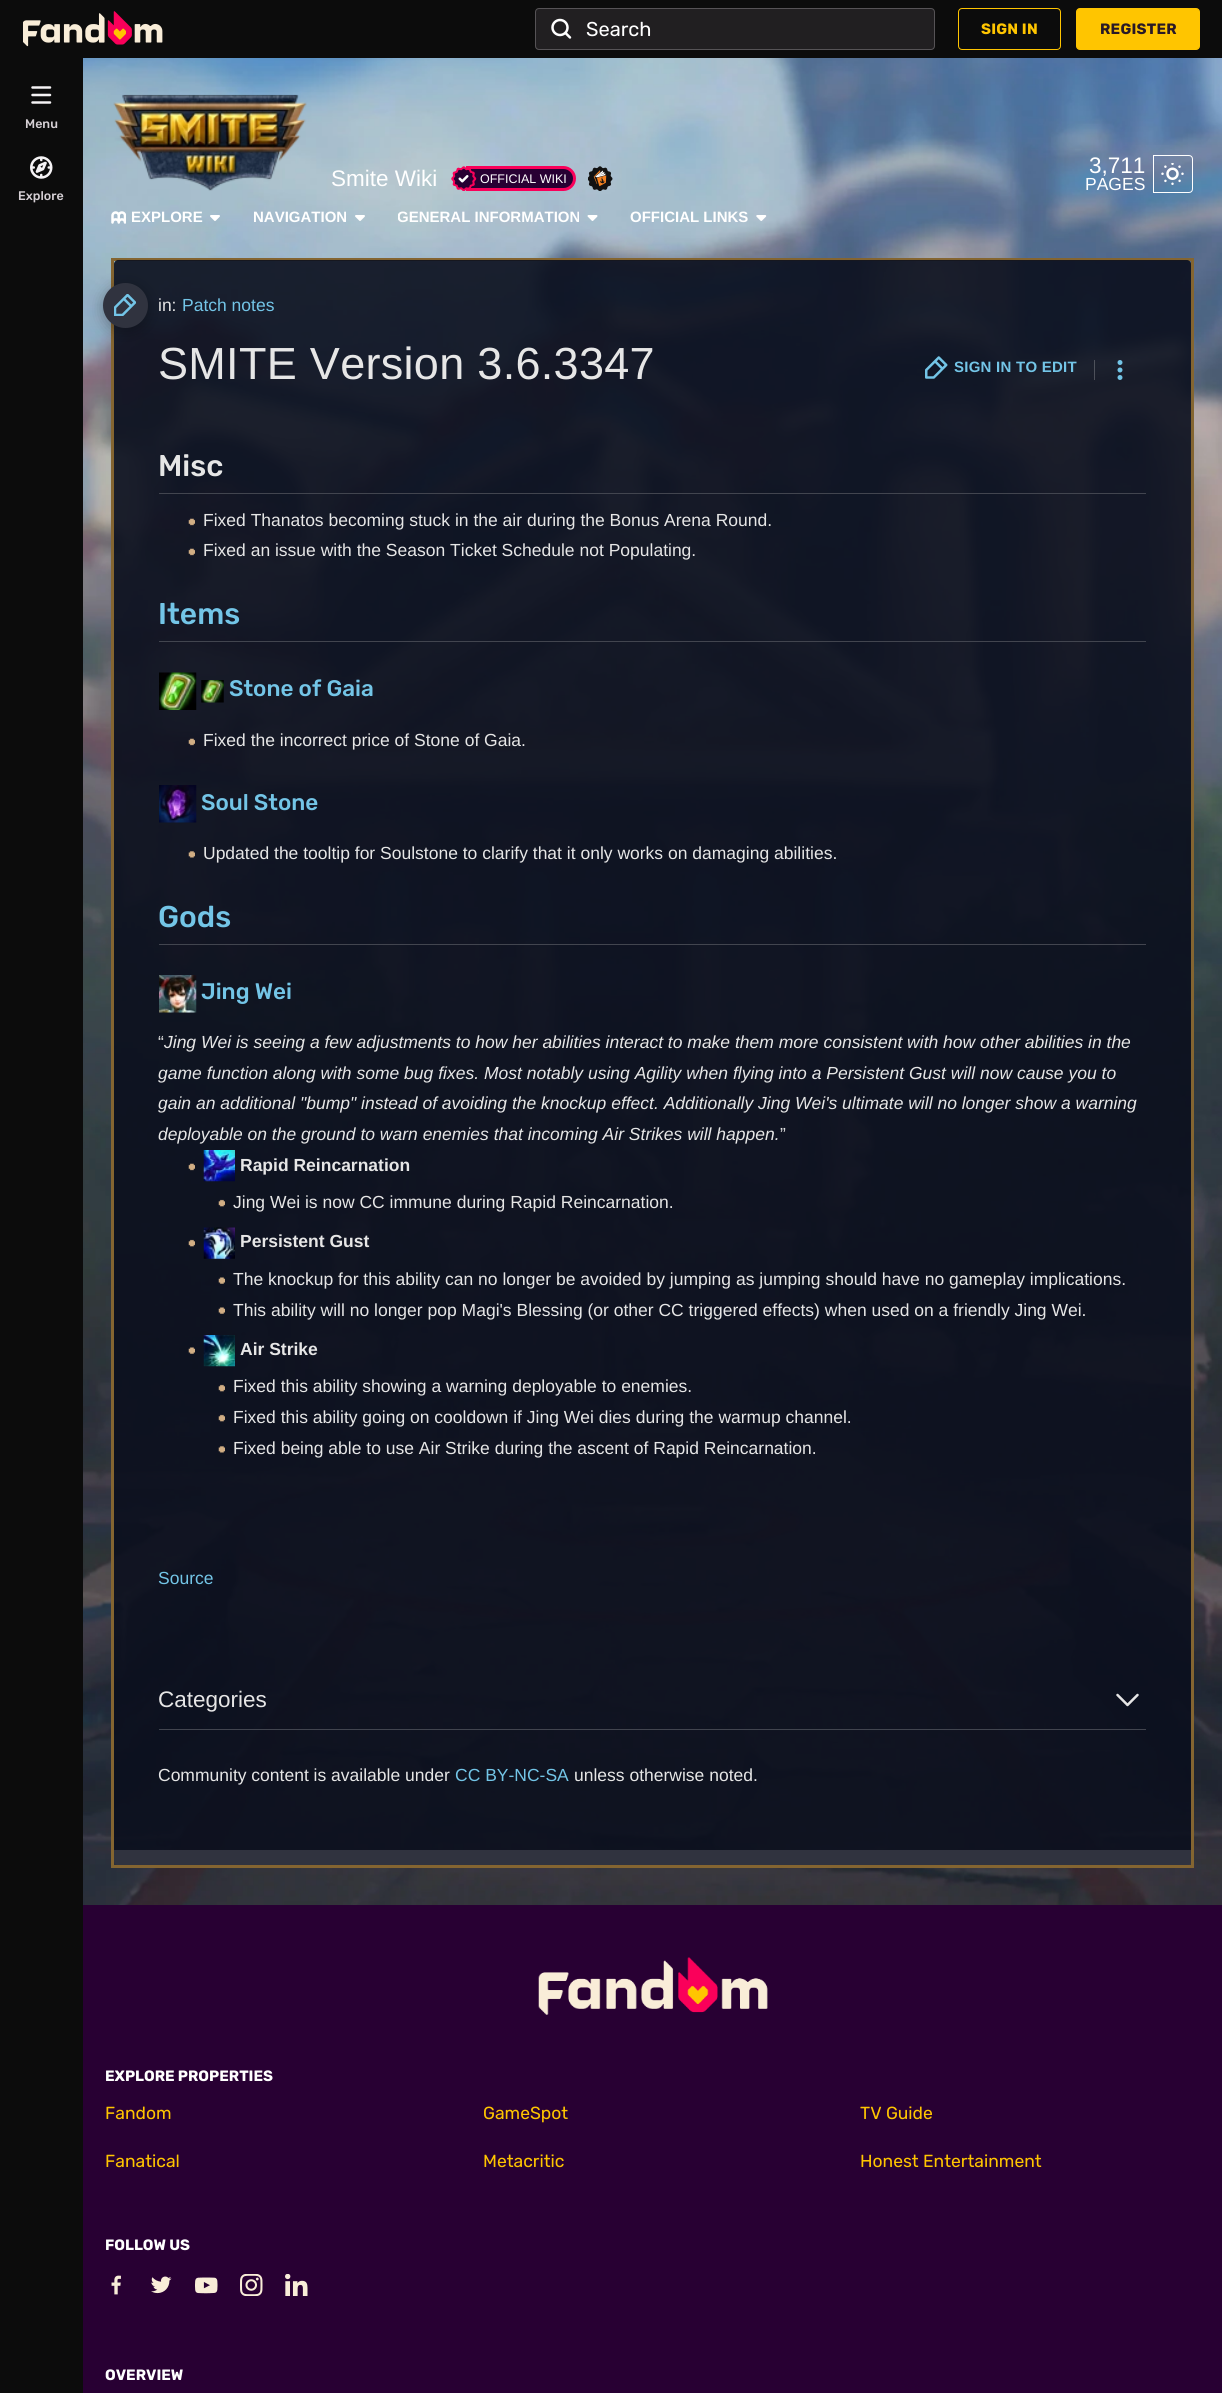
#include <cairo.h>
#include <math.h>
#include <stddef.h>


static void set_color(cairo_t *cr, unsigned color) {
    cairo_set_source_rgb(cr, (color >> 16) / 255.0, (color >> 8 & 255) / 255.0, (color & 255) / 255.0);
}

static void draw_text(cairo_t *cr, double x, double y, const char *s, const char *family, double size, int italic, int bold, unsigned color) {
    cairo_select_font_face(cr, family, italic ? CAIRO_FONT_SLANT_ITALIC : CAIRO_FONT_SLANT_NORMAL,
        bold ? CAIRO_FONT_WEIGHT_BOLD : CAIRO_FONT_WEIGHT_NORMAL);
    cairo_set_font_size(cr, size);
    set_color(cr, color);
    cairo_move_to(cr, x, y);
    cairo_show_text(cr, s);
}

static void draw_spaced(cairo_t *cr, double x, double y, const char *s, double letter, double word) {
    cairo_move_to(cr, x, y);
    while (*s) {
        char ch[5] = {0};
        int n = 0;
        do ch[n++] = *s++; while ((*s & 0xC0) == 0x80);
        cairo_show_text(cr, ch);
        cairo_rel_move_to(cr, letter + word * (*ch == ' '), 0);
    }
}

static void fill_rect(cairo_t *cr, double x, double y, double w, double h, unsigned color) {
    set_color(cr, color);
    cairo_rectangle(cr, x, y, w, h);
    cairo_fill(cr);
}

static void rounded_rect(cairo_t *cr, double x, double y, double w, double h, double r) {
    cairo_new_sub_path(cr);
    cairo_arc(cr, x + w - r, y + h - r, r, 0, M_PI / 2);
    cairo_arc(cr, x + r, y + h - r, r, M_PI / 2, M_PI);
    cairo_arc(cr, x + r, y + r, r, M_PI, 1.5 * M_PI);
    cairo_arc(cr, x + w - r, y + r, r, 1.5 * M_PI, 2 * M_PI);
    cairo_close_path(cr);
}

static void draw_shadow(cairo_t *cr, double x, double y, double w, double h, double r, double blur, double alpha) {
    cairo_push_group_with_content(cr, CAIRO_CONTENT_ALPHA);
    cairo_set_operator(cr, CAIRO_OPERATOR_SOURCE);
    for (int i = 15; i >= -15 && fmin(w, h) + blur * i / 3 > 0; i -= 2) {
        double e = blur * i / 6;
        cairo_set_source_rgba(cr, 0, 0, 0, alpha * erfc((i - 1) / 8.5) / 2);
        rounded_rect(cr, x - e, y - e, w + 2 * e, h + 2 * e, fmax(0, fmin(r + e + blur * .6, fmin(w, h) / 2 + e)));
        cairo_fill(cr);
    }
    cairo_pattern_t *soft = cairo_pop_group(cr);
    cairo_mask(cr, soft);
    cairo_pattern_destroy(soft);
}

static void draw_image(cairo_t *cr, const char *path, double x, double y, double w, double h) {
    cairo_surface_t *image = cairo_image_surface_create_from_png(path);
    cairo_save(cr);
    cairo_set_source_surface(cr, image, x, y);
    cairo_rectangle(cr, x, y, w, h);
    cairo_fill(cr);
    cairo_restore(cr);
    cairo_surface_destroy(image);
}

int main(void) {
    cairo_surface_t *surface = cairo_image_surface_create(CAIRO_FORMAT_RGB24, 1222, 2393);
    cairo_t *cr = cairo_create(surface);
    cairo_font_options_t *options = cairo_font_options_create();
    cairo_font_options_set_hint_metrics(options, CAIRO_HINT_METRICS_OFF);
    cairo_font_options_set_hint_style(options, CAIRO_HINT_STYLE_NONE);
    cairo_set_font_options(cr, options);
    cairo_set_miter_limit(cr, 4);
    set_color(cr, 0xFFFFFF);
    cairo_paint(cr);
    draw_image(cr, "assets/img1.png", 83, 58, 1139, 1847);
    fill_rect(cr, 0, 0, 1222, 58, 0x0C0C0C);
    draw_image(cr, "assets/img2.png", 23, 11, 140, 36);
    set_color(cr, 0x211F21);
    rounded_rect(cr, 535, 8, 400, 42, 4);
    cairo_fill(cr);
    rounded_rect(cr, 535.5, 8.5, 399, 41, 3.5);
    cairo_set_source_rgba(cr, 0.961, 0.953, 0.961, 0.25);
    cairo_set_line_width(cr, 1);
    cairo_stroke(cr);
    draw_image(cr, "assets/img3.png", 551, 18, 21, 21);
    draw_text(cr, 586, 36, "Search", "Rubik", 20, 0, 0, 0xFFFFFF);
    rounded_rect(cr, 958.5, 8.5, 102, 41, 3.5);
    set_color(cr, 0xFFC500);
    cairo_stroke(cr);
    cairo_select_font_face(cr, "Rubik", CAIRO_FONT_SLANT_NORMAL, CAIRO_FONT_WEIGHT_BOLD);
    cairo_set_font_size(cr, 15);
    draw_spaced(cr, 981, 34, "SIGN IN", 0.25, 0);
    rounded_rect(cr, 1076.5, 8.5, 123, 41, 3.5);
    cairo_fill_preserve(cr);
    cairo_stroke(cr);
    set_color(cr, 0x291927);
    draw_spaced(cr, 1100, 34, "REGISTER", 0.25, 0);
    cairo_rectangle(cr, 112.5, 259.5, 1080, 1607);
    set_color(cr, 0x846531);
    cairo_set_line_width(cr, 3);
    cairo_stroke(cr);
    cairo_set_source_rgba(cr, 0.043, 0.059, 0.114, 0.9);
    cairo_new_path(cr);
    cairo_move_to(cr, 118, 260);
    cairo_line_to(cr, 1187, 260);
    cairo_curve_to(cr, 1189, 260, 1191, 262, 1191, 264);
    cairo_line_to(cr, 1191, 1850);
    cairo_line_to(cr, 114, 1850);
    cairo_line_to(cr, 114, 264);
    cairo_curve_to(cr, 114, 262, 116, 260, 118, 260);
    cairo_close_path(cr);
    cairo_fill(cr);
    set_color(cr, 0x000000);
    draw_shadow(cr, 103, 286, 45, 45, 22.5, 7.5, 0.3);
    fill_rect(cr, 0, 58, 83, 2335, 0x0C0C0C);
    draw_image(cr, "assets/img4.png", 31, 86, 21, 18);
    draw_text(cr, 25, 128, "Menu", "Rubik Medium", 12.5, 0, 0, 0xD6D0D5);
    draw_image(cr, "assets/img5.png", 30, 156, 23, 23);
    draw_text(cr, 18, 200, "Explore", "Rubik Medium", 12.5, 0, 0, 0xD6D0D5);
    draw_image(cr, "assets/img6.png", 113, 94, 194, 97);
    draw_text(cr, 331, 186, "Smite Wiki", "Liberation Sans", 22.5, 0, 0, 0xFFFFFF);
    set_color(cr, 0x280033);
    cairo_new_path(cr);
    cairo_move_to(cr, 467.5, 167.5);
    cairo_line_to(cr, 563.5, 167.5);
    cairo_curve_to(cr, 569.5, 167.5, 574.5, 172.5, 574.5, 178.5);
    cairo_curve_to(cr, 574.5, 184.5, 569.5, 189.5, 563.5, 189.5);
    cairo_line_to(cr, 467.5, 189.5);
    cairo_close_path(cr);
    cairo_fill_preserve(cr);
    set_color(cr, 0xFA005A);
    cairo_stroke(cr);
    draw_image(cr, "assets/img7.png", 451, 166, 26, 25);
    draw_text(cr, 480, 183, "OFFICIAL WIKI", "Liberation Sans", 12.5, 0, 0, 0xFFFFFF);
    draw_image(cr, "assets/img8.png", 588, 166, 25, 25);
    draw_text(cr, 1089, 173, "3,711", "Liberation Sans", 22.5, 0, 0, 0xFFFFFF);
    draw_text(cr, 1085, 190, "PAGES", "Liberation Sans", 17.5, 0, 0, 0xFFFFFF);
    cairo_new_path(cr);
    cairo_move_to(cr, 1153.5, 155.5);
    cairo_line_to(cr, 1189, 155.5);
    cairo_curve_to(cr, 1191, 155.5, 1192.5, 157, 1192.5, 159);
    cairo_line_to(cr, 1192.5, 189);
    cairo_curve_to(cr, 1192.5, 191, 1191, 192.5, 1189, 192.5);
    cairo_line_to(cr, 1153.5, 192.5);
    cairo_close_path(cr);
    cairo_set_line_width(cr, 1);
    cairo_stroke(cr);
    draw_image(cr, "assets/img9.png", 1161, 163, 23, 22);
    draw_image(cr, "assets/img10.png", 111, 211, 15, 13);
    draw_text(cr, 131, 222, "EXPLORE", "Liberation Sans", 15, 0, 1, 0xFFFFFF);
    draw_image(cr, "assets/img11.png", 210, 215, 10, 6);
    draw_text(cr, 253, 222, "NAVIGATION", "Liberation Sans", 15, 0, 1, 0xFFFFFF);
    draw_image(cr, "assets/img12.png", 355, 215, 10, 6);
    cairo_save(cr);
    cairo_rectangle(cr, 398, 209, 182, 19);
    cairo_clip(cr);
    draw_text(cr, 397, 222, "GENERAL INFORMATION", "Liberation Sans", 15, 0, 1, 0xFFFFFF);
    cairo_restore(cr);
    draw_image(cr, "assets/img13.png", 587, 215, 11, 6);
    draw_text(cr, 630, 222, "OFFICIAL LINKS", "Liberation Sans", 15, 0, 1, 0xFFFFFF);
    draw_image(cr, "assets/img14.png", 756, 215, 11, 6);
    set_color(cr, 0x30333F);
    cairo_arc(cr, 125.5, 305.5, 22.5, 0, 2 * M_PI);
    cairo_fill(cr);
    draw_image(cr, "assets/img15.png", 114, 294, 22, 22);
    draw_text(cr, 158, 311, "in:", "Liberation Sans", 17.5, 0, 0, 0xE6E6E6);
    draw_text(cr, 182, 311, "Patch notes", "Liberation Sans", 17.5, 0, 0, 0x73C5E7);
    cairo_set_font_size(cr, 45);
    set_color(cr, 0xE6E6E6);
    draw_spaced(cr, 158, 379, "SMITE Version 3.6.3347", 0.3, 0);
    draw_image(cr, "assets/img16.png", 925, 356, 23, 23);
    cairo_select_font_face(cr, "Liberation Sans", CAIRO_FONT_SLANT_NORMAL, CAIRO_FONT_WEIGHT_BOLD);
    cairo_set_font_size(cr, 15);
    set_color(cr, 0x73C5E7);
    draw_spaced(cr, 954, 372, "SIGN IN TO EDIT", 0.25, 0);
    cairo_set_source_rgba(cr, 0.902, 0.902, 0.902, 0.25);
    cairo_rectangle(cr, 1094, 360, 1, 20);
    cairo_fill(cr);
    draw_image(cr, "assets/img17.png", 1117, 360, 6, 20);
    fill_rect(cr, 159, 493, 987, 1, 0x42454F);
    draw_text(cr, 158, 476, "Misc", "Rubik Medium", 30, 0, 0, 0xE6E6E6);
    draw_image(cr, "assets/img18.png", 188, 518, 7, 8);
    draw_text(cr, 203, 526, "Fixed Thanatos becoming stuck in the air during the Bonus Arena Round.", "Liberation Sans", 17.5, 0, 0, 0xE6E6E6);
    draw_image(cr, "assets/img19.png", 188, 548, 7, 8);
    draw_text(cr, 203, 556, "Fixed an issue with the Season Ticket Schedule not Populating.", "Liberation Sans", 17.5, 0, 0, 0xE6E6E6);
    fill_rect(cr, 159, 641, 987, 1, 0x42454F);
    draw_text(cr, 158, 624, "Items", "Rubik Medium", 30, 0, 0, 0x73C5E7);
    draw_image(cr, "assets/img20.png", 159, 672, 38, 38);
    draw_image(cr, "assets/img21.png", 201, 680, 23, 23);
    draw_text(cr, 229, 696, "Stone of Gaia", "Rubik Medium", 22.5, 0, 0, 0x73C5E7);
    draw_image(cr, "assets/img22.png", 188, 738, 7, 8);
    draw_text(cr, 203, 746, "Fixed the incorrect price of Stone of Gaia.", "Liberation Sans", 17.5, 0, 0, 0xE6E6E6);
    draw_image(cr, "assets/img23.png", 159, 785, 38, 38);
    draw_text(cr, 201, 810, "Soul Stone", "Rubik Medium", 22.5, 0, 0, 0x73C5E7);
    draw_image(cr, "assets/img24.png", 188, 851, 7, 7);
    draw_text(cr, 203, 859, "Updated the tooltip for Soulstone to clarify that it only works on damaging abilities.", "Liberation Sans", 17.5, 0, 0, 0xE6E6E6);
    fill_rect(cr, 159, 944, 987, 1, 0x42454F);
    draw_text(cr, 158, 927, "Gods", "Rubik Medium", 30, 0, 0, 0x73C5E7);
    draw_image(cr, "assets/img25.png", 159, 975, 38, 38);
    draw_text(cr, 201, 999, "Jing Wei", "Rubik Medium", 22.5, 0, 0, 0x73C5E7);
    draw_text(cr, 158, 1048, "“", "Liberation Sans", 17.5, 0, 0, 0xE6E6E6);
    draw_text(cr, 164, 1048, "Jing Wei is seeing a few adjustments to how her abilities interact to make them more consistent with how other abilities in the", "Liberation Sans", 17.5, 1, 0, 0xE6E6E6);
    draw_text(cr, 158, 1079, "game function along with some bug fixes. Most notably using Agility when flying into a Persistent Gust will now cause you to", "Liberation Sans", 17.5, 1, 0, 0xE6E6E6);
    draw_text(cr, 158, 1109, "gain an additional \"bump\" instead of avoiding the knockup effect. Additionally Jing Wei's ultimate will no longer show a warning", "Liberation Sans", 17.5, 1, 0, 0xE6E6E6);
    draw_text(cr, 158, 1140, "deployable on the ground to warn enemies that incoming Air Strikes will happen.", "Liberation Sans", 17.5, 1, 0, 0xE6E6E6);
    draw_text(cr, 780, 1140, "”", "Liberation Sans", 17.5, 0, 0, 0xE6E6E6);
    draw_image(cr, "assets/img26.png", 188, 1163, 7, 8);
    draw_image(cr, "assets/img27.png", 203, 1150, 32, 32);
    draw_text(cr, 240, 1171, "Rapid Reincarnation", "Liberation Sans", 17.5, 0, 1, 0xE6E6E6);
    draw_image(cr, "assets/img28.png", 218, 1199, 7, 8);
    draw_text(cr, 233, 1208, "Jing Wei is now CC immune during Rapid Reincarnation.", "Liberation Sans", 17.5, 0, 0, 0xE6E6E6);
    draw_image(cr, "assets/img29.png", 188, 1239, 7, 8);
    draw_image(cr, "assets/img30.png", 203, 1227, 32, 32);
    draw_text(cr, 240, 1247, "Persistent Gust", "Liberation Sans", 17.5, 0, 1, 0xE6E6E6);
    draw_image(cr, "assets/img31.png", 218, 1277, 7, 7);
    draw_text(cr, 233, 1285, "The knockup for this ability can no longer be avoided by jumping as jumping should have no gameplay implications.", "Liberation Sans", 17.5, 0, 0, 0xE6E6E6);
    draw_image(cr, "assets/img32.png", 218, 1307, 7, 7);
    draw_text(cr, 233, 1316, "This ability will no longer pop Magi's Blessing (or other CC triggered effects) when used on a friendly Jing Wei.", "Liberation Sans", 17.5, 0, 0, 0xE6E6E6);
    draw_image(cr, "assets/img33.png", 188, 1347, 7, 7);
    draw_image(cr, "assets/img34.png", 203, 1335, 32, 32);
    draw_text(cr, 240, 1355, "Air Strike", "Liberation Sans", 17.5, 0, 1, 0xE6E6E6);
    draw_image(cr, "assets/img35.png", 218, 1384, 7, 8);
    draw_text(cr, 233, 1392, "Fixed this ability showing a warning deployable to enemies.", "Liberation Sans", 17.5, 0, 0, 0xE6E6E6);
    draw_image(cr, "assets/img36.png", 218, 1414, 7, 8);
    draw_text(cr, 233, 1423, "Fixed this ability going on cooldown if Jing Wei dies during the warmup channel.", "Liberation Sans", 17.5, 0, 0, 0xE6E6E6);
    draw_image(cr, "assets/img37.png", 218, 1446, 7, 7);
    draw_text(cr, 233, 1454, "Fixed being able to use Air Strike during the ascent of Rapid Reincarnation.", "Liberation Sans", 17.5, 0, 0, 0xE6E6E6);
    draw_text(cr, 158, 1584, "Source", "Liberation Sans", 17.5, 0, 0, 0x73C5E7);
    fill_rect(cr, 159, 1729, 987, 1, 0x42454F);
    draw_text(cr, 158, 1707, "Categories", "Liberation Sans", 22.5, 0, 0, 0xE6E6E6);
    draw_image(cr, "assets/img38.png", 1116, 1693, 23, 14);
    draw_text(cr, 158, 1781, "Community content is available under", "Liberation Sans", 17.5, 0, 0, 0xE6E6E6);
    draw_text(cr, 455, 1781, "CC BY-NC-SA", "Liberation Sans", 17.5, 0, 0, 0x73C5E7);
    draw_text(cr, 574, 1781, "unless otherwise noted.", "Liberation Sans", 17.5, 0, 0, 0xE6E6E6);
    set_color(cr, 0x30333F);
    cairo_new_path(cr);
    cairo_move_to(cr, 114, 1850);
    cairo_line_to(cr, 1191, 1850);
    cairo_line_to(cr, 1191, 1861);
    cairo_curve_to(cr, 1191, 1863, 1189, 1865, 1187, 1865);
    cairo_line_to(cr, 118, 1865);
    cairo_curve_to(cr, 116, 1865, 114, 1863, 114, 1861);
    cairo_close_path(cr);
    cairo_fill(cr);
    fill_rect(cr, 83, 1905, 1139, 488, 0x280033);
    draw_image(cr, "assets/img39.png", 538, 1957, 230, 58);
    draw_text(cr, 105, 2081, "EXPLORE PROPERTIES", "Rubik", 15, 0, 1, 0xFFFFFF);
    draw_text(cr, 105, 2119, "Fandom", "Rubik", 17.5, 0, 0, 0xFFC500);
    draw_text(cr, 483, 2119, "GameSpot", "Rubik", 17.5, 0, 0, 0xFFC500);
    draw_text(cr, 860, 2119, "TV Guide", "Rubik", 17.5, 0, 0, 0xFFC500);
    draw_text(cr, 105, 2167, "Fanatical", "Rubik", 17.5, 0, 0, 0xFFC500);
    draw_text(cr, 483, 2167, "Metacritic", "Rubik", 17.5, 0, 0, 0xFFC500);
    draw_text(cr, 860, 2167, "Honest Entertainment", "Rubik", 17.5, 0, 0, 0xFFC500);
    draw_text(cr, 105, 2250, "FOLLOW US", "Rubik", 15, 0, 1, 0xFFFFFF);
    draw_image(cr, "assets/img40.png", 111, 2275, 10, 20);
    draw_image(cr, "assets/img41.png", 151, 2276, 21, 18);
    draw_image(cr, "assets/img42.png", 195, 2277, 23, 17);
    draw_image(cr, "assets/img43.png", 240, 2274, 23, 22);
    draw_image(cr, "assets/img44.png", 285, 2274, 23, 22);
    draw_text(cr, 105, 2380, "OVERVIEW", "Rubik", 15, 0, 1, 0xFFFFFF);
    cairo_surface_write_to_png(surface, "output.png");
    cairo_font_options_destroy(options);
    cairo_destroy(cr);
    cairo_surface_destroy(surface);
    return 0;
}
